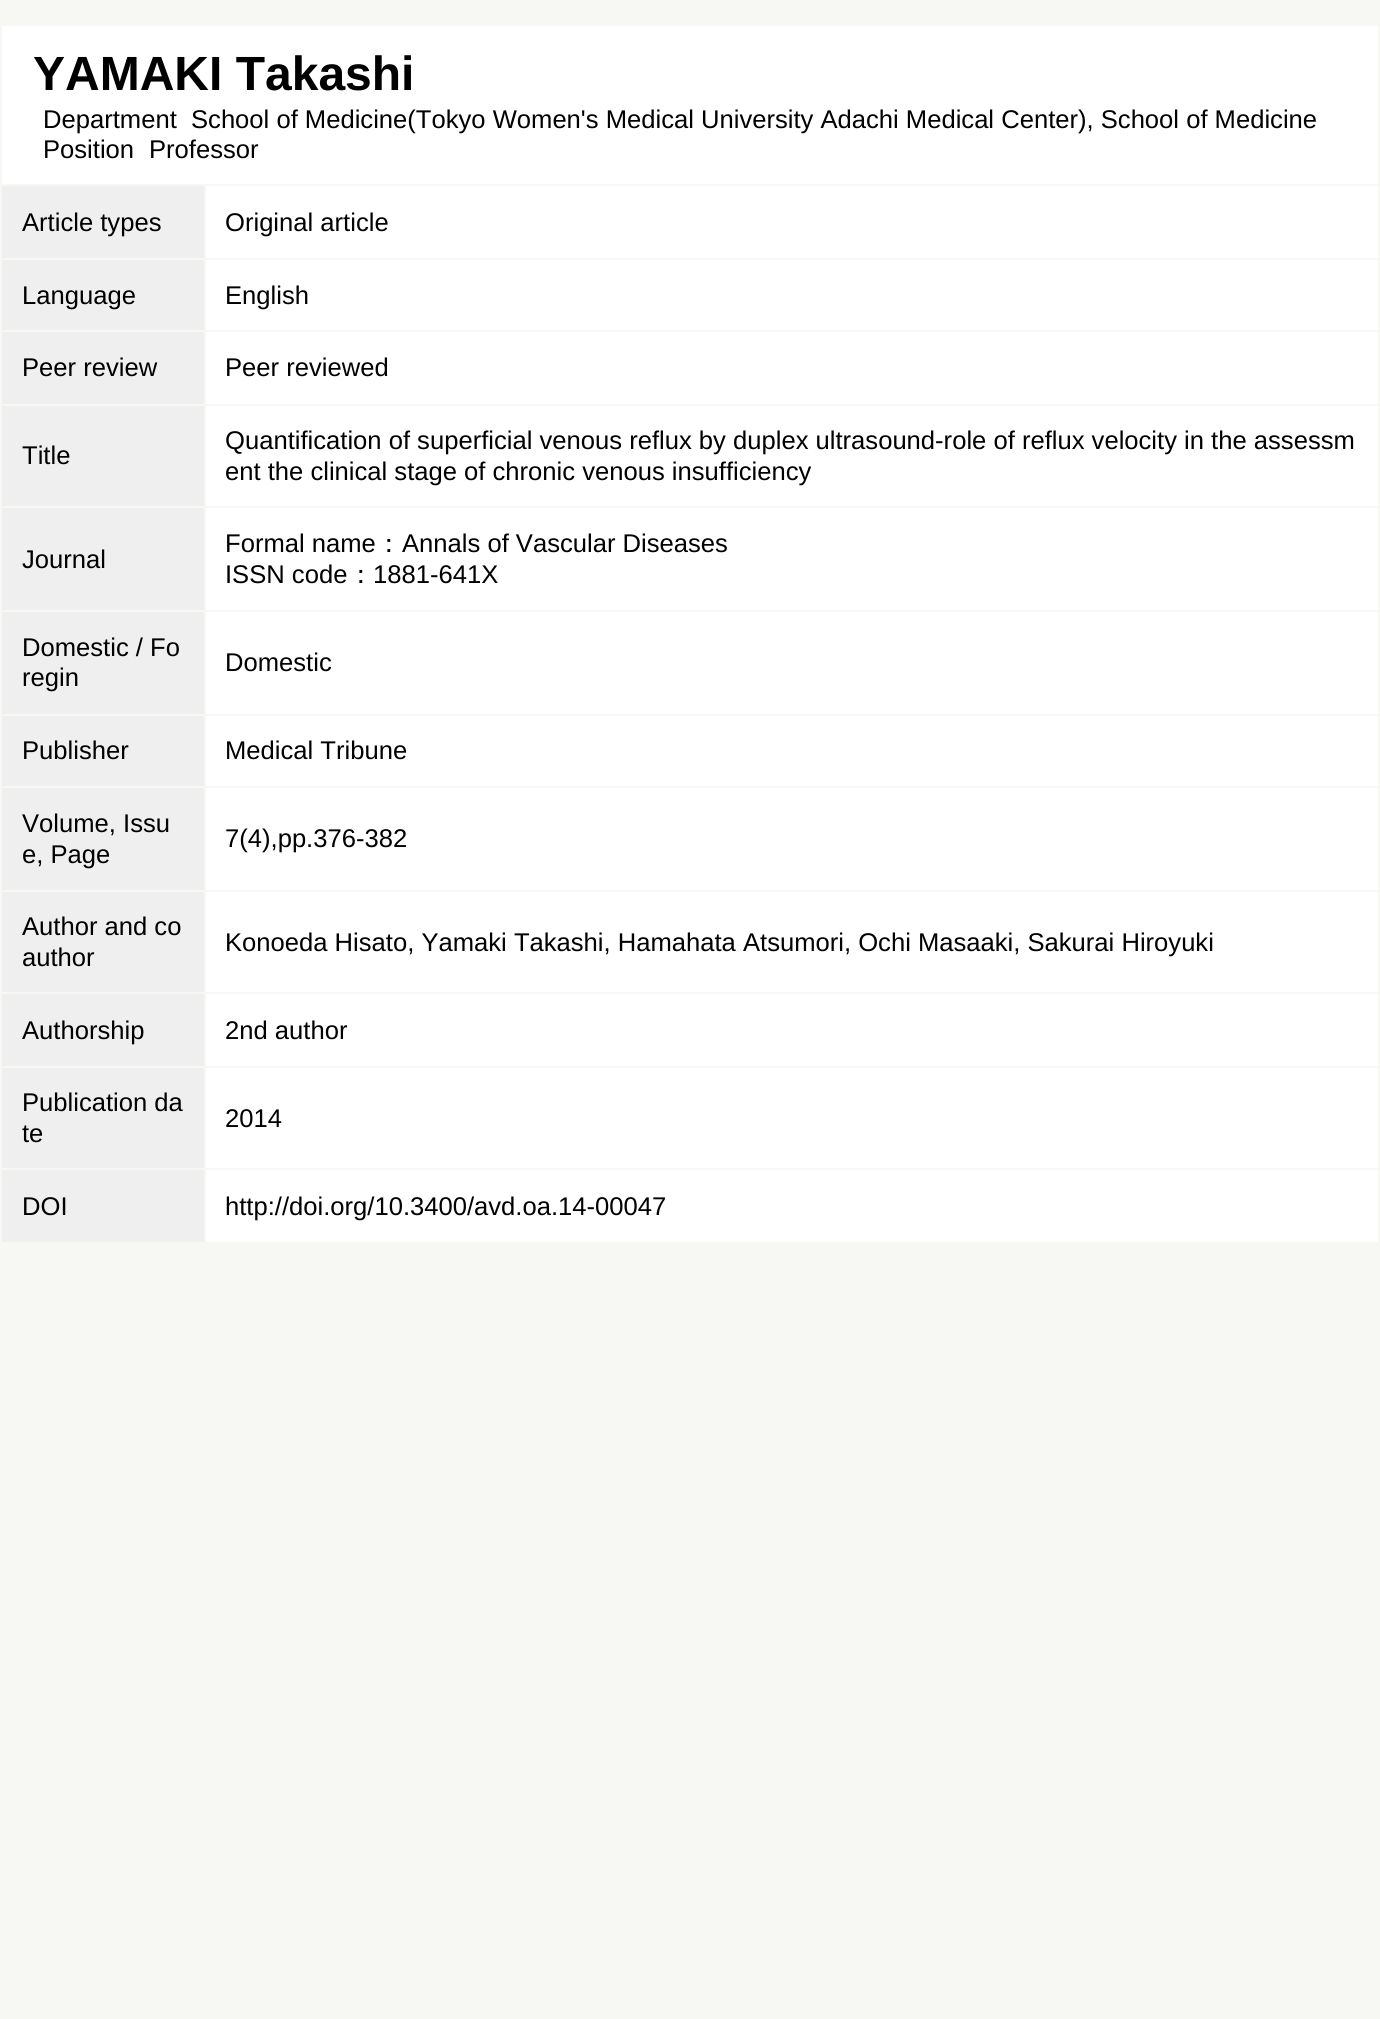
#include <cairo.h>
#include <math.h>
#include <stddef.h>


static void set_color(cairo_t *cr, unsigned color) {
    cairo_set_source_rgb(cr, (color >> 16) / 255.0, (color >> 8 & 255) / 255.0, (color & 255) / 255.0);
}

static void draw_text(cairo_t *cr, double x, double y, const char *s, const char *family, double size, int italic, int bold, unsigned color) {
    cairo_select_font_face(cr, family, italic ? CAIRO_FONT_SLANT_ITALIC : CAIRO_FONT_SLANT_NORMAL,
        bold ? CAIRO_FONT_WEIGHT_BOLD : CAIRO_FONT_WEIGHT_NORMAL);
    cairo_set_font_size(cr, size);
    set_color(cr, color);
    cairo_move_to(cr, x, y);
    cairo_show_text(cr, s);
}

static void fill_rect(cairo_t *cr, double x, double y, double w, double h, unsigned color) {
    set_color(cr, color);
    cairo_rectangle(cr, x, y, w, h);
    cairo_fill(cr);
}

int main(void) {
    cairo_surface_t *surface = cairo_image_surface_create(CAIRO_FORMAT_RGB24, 1380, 2019);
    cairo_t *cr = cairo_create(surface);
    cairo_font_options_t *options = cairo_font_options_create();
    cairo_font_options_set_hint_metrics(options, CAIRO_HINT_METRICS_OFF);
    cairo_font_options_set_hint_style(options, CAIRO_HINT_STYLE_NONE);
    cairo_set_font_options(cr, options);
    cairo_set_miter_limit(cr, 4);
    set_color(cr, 0xF7F8F3);
    cairo_paint(cr);
    fill_rect(cr, 2, 26, 1376, 158, 0xFFFFFF);
    draw_text(cr, 33, 90, "YAMAKI Takashi", "Liberation Sans", 48, 0, 1, 0x000000);
    draw_text(cr, 43, 128, "Department", "Liberation Sans", 25.6, 0, 0, 0x000000);
    draw_text(cr, 191, 128, "School of Medicine(Tokyo Women's Medical University Adachi Medical Center), School of Medicine", "Liberation Sans", 25.6, 0, 0, 0x000000);
    draw_text(cr, 43, 158, "Position", "Liberation Sans", 25.6, 0, 0, 0x000000);
    draw_text(cr, 149, 158, "Professor", "Liberation Sans", 25.6, 0, 0, 0x000000);
    fill_rect(cr, 2, 186, 202, 72, 0xEFEFEF);
    draw_text(cr, 22, 231, "Article types", "Liberation Sans", 25.6, 0, 0, 0x000000);
    fill_rect(cr, 206, 186, 1172, 72, 0xFFFFFF);
    draw_text(cr, 225, 231, "Original article", "Liberation Sans", 25.6, 0, 0, 0x000000);
    fill_rect(cr, 2, 260, 202, 70, 0xEFEFEF);
    draw_text(cr, 22, 304, "Language", "Liberation Sans", 25.6, 0, 0, 0x000000);
    fill_rect(cr, 206, 260, 1172, 70, 0xFFFFFF);
    draw_text(cr, 225, 304, "English", "Liberation Sans", 25.6, 0, 0, 0x000000);
    fill_rect(cr, 2, 332, 202, 72, 0xEFEFEF);
    draw_text(cr, 22, 376, "Peer review", "Liberation Sans", 25.6, 0, 0, 0x000000);
    fill_rect(cr, 206, 332, 1172, 72, 0xFFFFFF);
    draw_text(cr, 225, 376, "Peer reviewed", "Liberation Sans", 25.6, 0, 0, 0x000000);
    fill_rect(cr, 2, 406, 202, 100, 0xEFEFEF);
    draw_text(cr, 22, 464, "Title", "Liberation Sans", 25.6, 0, 0, 0x000000);
    fill_rect(cr, 206, 406, 1172, 100, 0xFFFFFF);
    draw_text(cr, 225, 449, "Quantification of superficial venous reflux by duplex ultrasound-role of reflux velocity in the assessm", "Liberation Sans", 25.6, 0, 0, 0x000000);
    draw_text(cr, 225, 480, "ent the clinical stage of chronic venous insufficiency", "Liberation Sans", 25.6, 0, 0, 0x000000);
    fill_rect(cr, 2, 508, 202, 102, 0xEFEFEF);
    draw_text(cr, 22, 568, "Journal", "Liberation Sans", 25.6, 0, 0, 0x000000);
    fill_rect(cr, 206, 508, 1172, 102, 0xFFFFFF);
    draw_text(cr, 225, 552, "Formal name", "Liberation Sans", 25.6, 0, 0, 0x000000);
    draw_text(cr, 376, 552, "：", "WenQuanYi Zen Hei Medium", 25.6, 0, 0, 0x000000);
    draw_text(cr, 402, 552, "Annals of Vascular Diseases", "Liberation Sans", 25.6, 0, 0, 0x000000);
    draw_text(cr, 225, 583, "ISSN code", "Liberation Sans", 25.6, 0, 0, 0x000000);
    draw_text(cr, 348, 583, "：", "WenQuanYi Zen Hei Medium", 25.6, 0, 0, 0x000000);
    draw_text(cr, 373, 583, "1881-641X", "Liberation Sans", 25.6, 0, 0, 0x000000);
    fill_rect(cr, 2, 612, 202, 102, 0xEFEFEF);
    draw_text(cr, 22, 656, "Domestic / Fo", "Liberation Sans", 25.6, 0, 0, 0x000000);
    draw_text(cr, 22, 686, "regin", "Liberation Sans", 25.6, 0, 0, 0x000000);
    fill_rect(cr, 206, 612, 1172, 102, 0xFFFFFF);
    draw_text(cr, 225, 671, "Domestic", "Liberation Sans", 25.6, 0, 0, 0x000000);
    fill_rect(cr, 2, 716, 202, 70, 0xEFEFEF);
    draw_text(cr, 22, 759, "Publisher", "Liberation Sans", 25.6, 0, 0, 0x000000);
    fill_rect(cr, 206, 716, 1172, 70, 0xFFFFFF);
    draw_text(cr, 225, 759, "Medical Tribune", "Liberation Sans", 25.6, 0, 0, 0x000000);
    fill_rect(cr, 2, 788, 202, 102, 0xEFEFEF);
    draw_text(cr, 22, 832, "Volume, Issu", "Liberation Sans", 25.6, 0, 0, 0x000000);
    draw_text(cr, 22, 863, "e, Page", "Liberation Sans", 25.6, 0, 0, 0x000000);
    fill_rect(cr, 206, 788, 1172, 102, 0xFFFFFF);
    draw_text(cr, 225, 847, "7(4),pp.376-382", "Liberation Sans", 25.6, 0, 0, 0x000000);
    fill_rect(cr, 2, 892, 202, 100, 0xEFEFEF);
    draw_text(cr, 22, 935, "Author and co", "Liberation Sans", 25.6, 0, 0, 0x000000);
    draw_text(cr, 22, 966, "author", "Liberation Sans", 25.6, 0, 0, 0x000000);
    fill_rect(cr, 206, 892, 1172, 100, 0xFFFFFF);
    draw_text(cr, 225, 951, "Konoeda Hisato, Yamaki Takashi, Hamahata Atsumori, Ochi Masaaki, Sakurai Hiroyuki", "Liberation Sans", 25.6, 0, 0, 0x000000);
    fill_rect(cr, 2, 994, 202, 72, 0xEFEFEF);
    draw_text(cr, 22, 1039, "Authorship", "Liberation Sans", 25.6, 0, 0, 0x000000);
    fill_rect(cr, 206, 994, 1172, 72, 0xFFFFFF);
    draw_text(cr, 225, 1039, "2nd author", "Liberation Sans", 25.6, 0, 0, 0x000000);
    fill_rect(cr, 2, 1068, 202, 100, 0xEFEFEF);
    draw_text(cr, 22, 1111, "Publication da", "Liberation Sans", 25.6, 0, 0, 0x000000);
    draw_text(cr, 22, 1142, "te", "Liberation Sans", 25.6, 0, 0, 0x000000);
    fill_rect(cr, 206, 1068, 1172, 100, 0xFFFFFF);
    draw_text(cr, 225, 1127, "2014", "Liberation Sans", 25.6, 0, 0, 0x000000);
    fill_rect(cr, 2, 1170, 202, 72, 0xEFEFEF);
    draw_text(cr, 22, 1215, "DOI", "Liberation Sans", 25.6, 0, 0, 0x000000);
    fill_rect(cr, 206, 1170, 1172, 72, 0xFFFFFF);
    draw_text(cr, 225, 1215, "http://doi.org/10.3400/avd.oa.14-00047", "Liberation Sans", 25.6, 0, 0, 0x000000);
    cairo_surface_write_to_png(surface, "output.png");
    cairo_font_options_destroy(options);
    cairo_destroy(cr);
    cairo_surface_destroy(surface);
    return 0;
}
